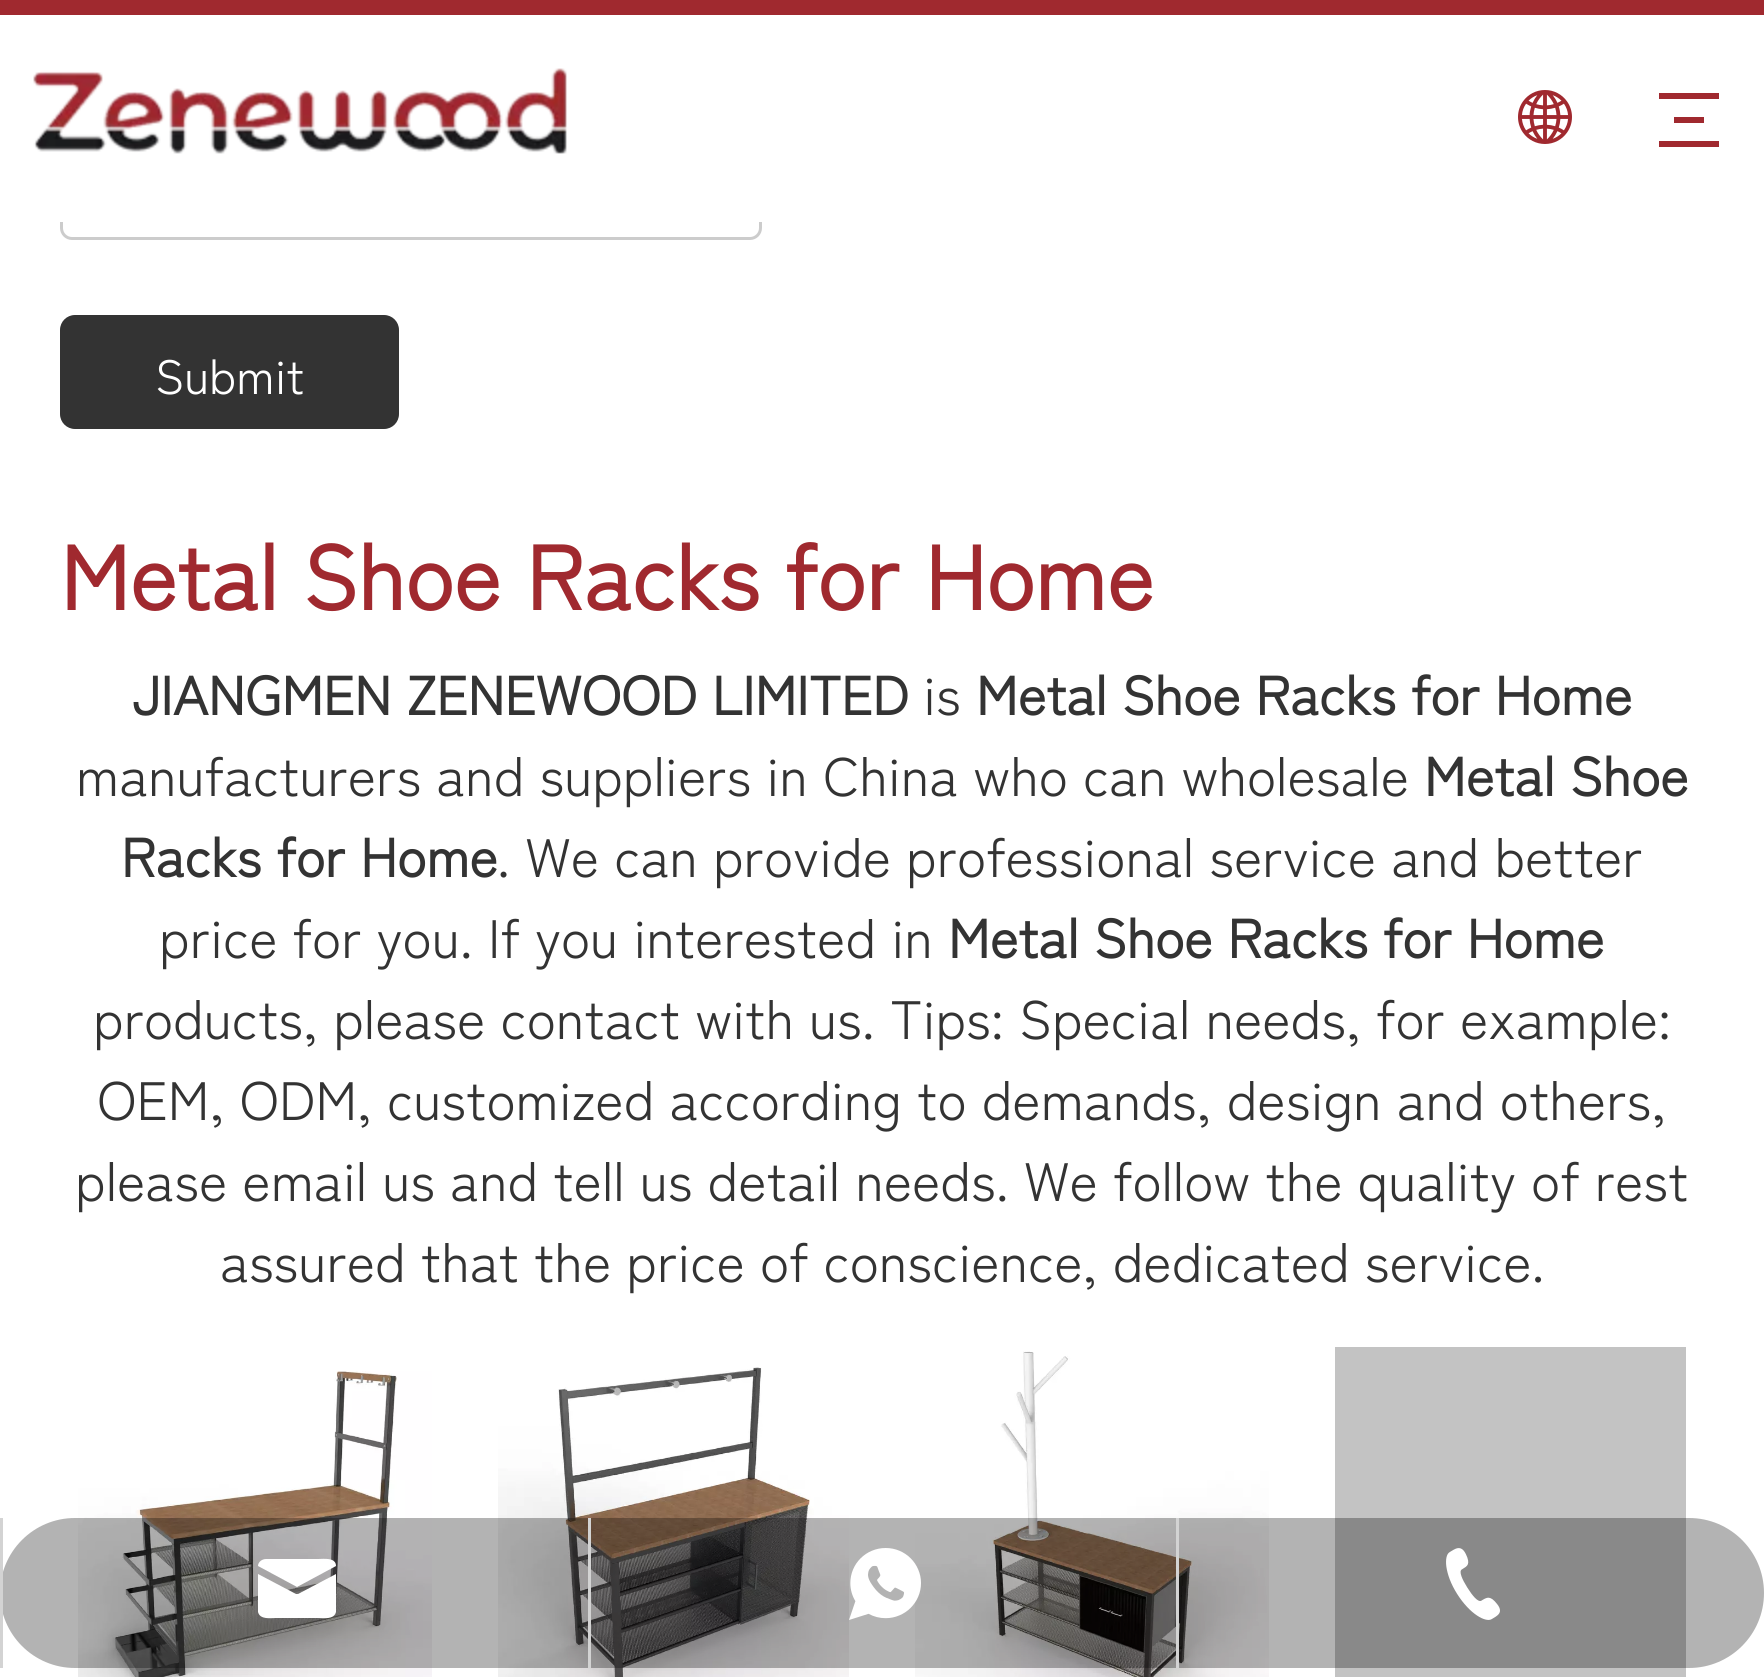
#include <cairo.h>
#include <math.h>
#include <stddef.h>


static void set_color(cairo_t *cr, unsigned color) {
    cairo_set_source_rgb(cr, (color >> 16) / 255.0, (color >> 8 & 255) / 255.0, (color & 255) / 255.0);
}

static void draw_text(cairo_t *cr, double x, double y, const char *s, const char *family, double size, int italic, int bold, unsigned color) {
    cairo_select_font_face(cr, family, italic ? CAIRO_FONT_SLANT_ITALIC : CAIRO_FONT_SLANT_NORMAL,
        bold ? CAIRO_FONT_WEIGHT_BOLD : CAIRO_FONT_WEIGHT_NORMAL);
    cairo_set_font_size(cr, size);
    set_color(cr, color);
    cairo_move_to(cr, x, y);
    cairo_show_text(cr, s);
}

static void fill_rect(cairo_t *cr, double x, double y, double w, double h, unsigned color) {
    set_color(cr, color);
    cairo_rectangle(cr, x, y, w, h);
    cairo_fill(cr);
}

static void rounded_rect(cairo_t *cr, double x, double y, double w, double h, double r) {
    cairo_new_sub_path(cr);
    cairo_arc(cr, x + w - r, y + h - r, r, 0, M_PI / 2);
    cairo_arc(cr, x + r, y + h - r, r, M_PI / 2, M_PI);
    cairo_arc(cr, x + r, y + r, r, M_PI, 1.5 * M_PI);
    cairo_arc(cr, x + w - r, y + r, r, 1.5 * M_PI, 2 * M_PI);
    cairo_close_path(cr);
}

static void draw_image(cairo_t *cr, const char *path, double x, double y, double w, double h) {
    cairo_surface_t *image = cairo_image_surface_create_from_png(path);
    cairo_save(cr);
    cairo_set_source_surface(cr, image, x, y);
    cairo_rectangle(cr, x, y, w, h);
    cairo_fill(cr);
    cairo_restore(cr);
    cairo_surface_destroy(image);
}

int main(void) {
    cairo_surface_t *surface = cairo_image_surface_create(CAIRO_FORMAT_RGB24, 1764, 1677);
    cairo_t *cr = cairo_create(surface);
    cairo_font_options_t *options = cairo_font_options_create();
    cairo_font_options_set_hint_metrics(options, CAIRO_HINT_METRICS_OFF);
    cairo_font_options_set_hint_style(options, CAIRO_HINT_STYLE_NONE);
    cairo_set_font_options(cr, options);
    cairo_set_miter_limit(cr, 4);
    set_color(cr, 0xFFFFFF);
    cairo_paint(cr);
    rounded_rect(cr, 61.5, 151.5, 699, 87, 10.5);
    set_color(cr, 0xCCCCCC);
    cairo_set_line_width(cr, 3);
    cairo_stroke(cr);
    fill_rect(cr, 60, 150, 702, 72, 0xFFFFFF);
    fill_rect(cr, 0, 0, 1764, 15, 0xA0292F);
    draw_image(cr, "assets/img1.png", 33, 68, 534, 86);
    draw_image(cr, "assets/img2.png", 1518, 90, 54, 54);
    fill_rect(cr, 1659, 93, 60, 6, 0xA0292F);
    fill_rect(cr, 1674, 117, 30, 6, 0xA0292F);
    fill_rect(cr, 1659, 141, 60, 6, 0xA0292F);
    set_color(cr, 0x333333);
    rounded_rect(cr, 60, 315, 339, 114, 15);
    cairo_fill(cr);
    draw_text(cr, 155, 394, "Submit", "Zen Kaku Gothic New", 48, 0, 0, 0xFFFFFF);
    draw_text(cr, 60, 610, "Metal Shoe Racks for Home", "Zen Kaku Gothic New", 90, 0, 1, 0xA0292F);
    draw_text(cr, 132, 715, "JIANGMEN ZENEWOOD LIMITED", "Zen Kaku Gothic New", 54, 0, 1, 0x333333);
    draw_text(cr, 923, 715, "is", "Zen Kaku Gothic New", 54, 0, 0, 0x333333);
    draw_text(cr, 976, 715, "Metal Shoe Racks for Home", "Zen Kaku Gothic New", 54, 0, 1, 0x333333);
    draw_text(cr, 76, 796, "manufacturers and suppliers in China who can wholesale", "Zen Kaku Gothic New", 54, 0, 0, 0x333333);
    draw_text(cr, 1424, 796, "Metal Shoe", "Zen Kaku Gothic New", 54, 0, 1, 0x333333);
    draw_text(cr, 121, 877, "Racks for Home", "Zen Kaku Gothic New", 54, 0, 1, 0x333333);
    draw_text(cr, 497, 877, ". We can provide professional service and better", "Zen Kaku Gothic New", 54, 0, 0, 0x333333);
    draw_text(cr, 159, 958, "price for you. If you interested in", "Zen Kaku Gothic New", 54, 0, 0, 0x333333);
    draw_text(cr, 948, 958, "Metal Shoe Racks for Home", "Zen Kaku Gothic New", 54, 0, 1, 0x333333);
    draw_text(cr, 93, 1039, "products, please contact with us. Tips: Special needs, for example:", "Zen Kaku Gothic New", 54, 0, 0, 0x333333);
    draw_text(cr, 97, 1120, "OEM, ODM, customized according to demands, design and others,", "Zen Kaku Gothic New", 54, 0, 0, 0x333333);
    draw_text(cr, 75, 1201, "please email us and tell us detail needs. We follow the quality of rest", "Zen Kaku Gothic New", 54, 0, 0, 0x333333);
    draw_text(cr, 220, 1282, "assured that the price of conscience, dedicated service.", "Zen Kaku Gothic New", 54, 0, 0, 0x333333);
    draw_image(cr, "assets/img3.png", 78, 1371, 354, 306);
    draw_image(cr, "assets/img4.png", 498, 1367, 351, 310);
    draw_image(cr, "assets/img5.png", 915, 1351, 354, 326);
    fill_rect(cr, 1335, 1347, 351, 330, 0xC3C3C3);
    cairo_set_source_rgba(cr, 0, 0, 0, 0.3);
    rounded_rect(cr, 0, 1518, 1764, 150, 75);
    cairo_fill(cr);
    fill_rect(cr, 0, 1518, 3, 150, 0xD3D3D3);
    set_color(cr, 0xFFFFFF);
    cairo_new_path(cr);
    cairo_move_to(cr, 266, 1559);
    cairo_line_to(cr, 318, 1559);
    cairo_curve_to(cr, 323, 1559, 336, 1557, 336, 1566);
    cairo_line_to(cr, 297, 1587);
    cairo_line_to(cr, 258, 1566);
    cairo_curve_to(cr, 258, 1562, 262, 1559, 266, 1559);
    cairo_close_path(cr);
    cairo_move_to(cr, 258, 1574);
    cairo_line_to(cr, 258, 1612);
    cairo_curve_to(cr, 260, 1620, 271, 1618, 276, 1618);
    cairo_line_to(cr, 318, 1618);
    cairo_curve_to(cr, 323, 1618, 334, 1620, 336, 1612);
    cairo_line_to(cr, 336, 1574);
    cairo_line_to(cr, 298, 1594);
    cairo_curve_to(cr, 297, 1594, 297, 1594, 296, 1594);
    cairo_close_path(cr);
    cairo_fill(cr);
    fill_rect(cr, 588, 1518, 3, 150, 0xD3D3D3);
    draw_image(cr, "assets/img6.png", 849, 1548, 72, 72);
    fill_rect(cr, 1176, 1518, 3, 150, 0xD3D3D3);
    draw_image(cr, "assets/img7.png", 1446, 1548, 54, 72);
    cairo_surface_write_to_png(surface, "output.png");
    cairo_font_options_destroy(options);
    cairo_destroy(cr);
    cairo_surface_destroy(surface);
    return 0;
}
